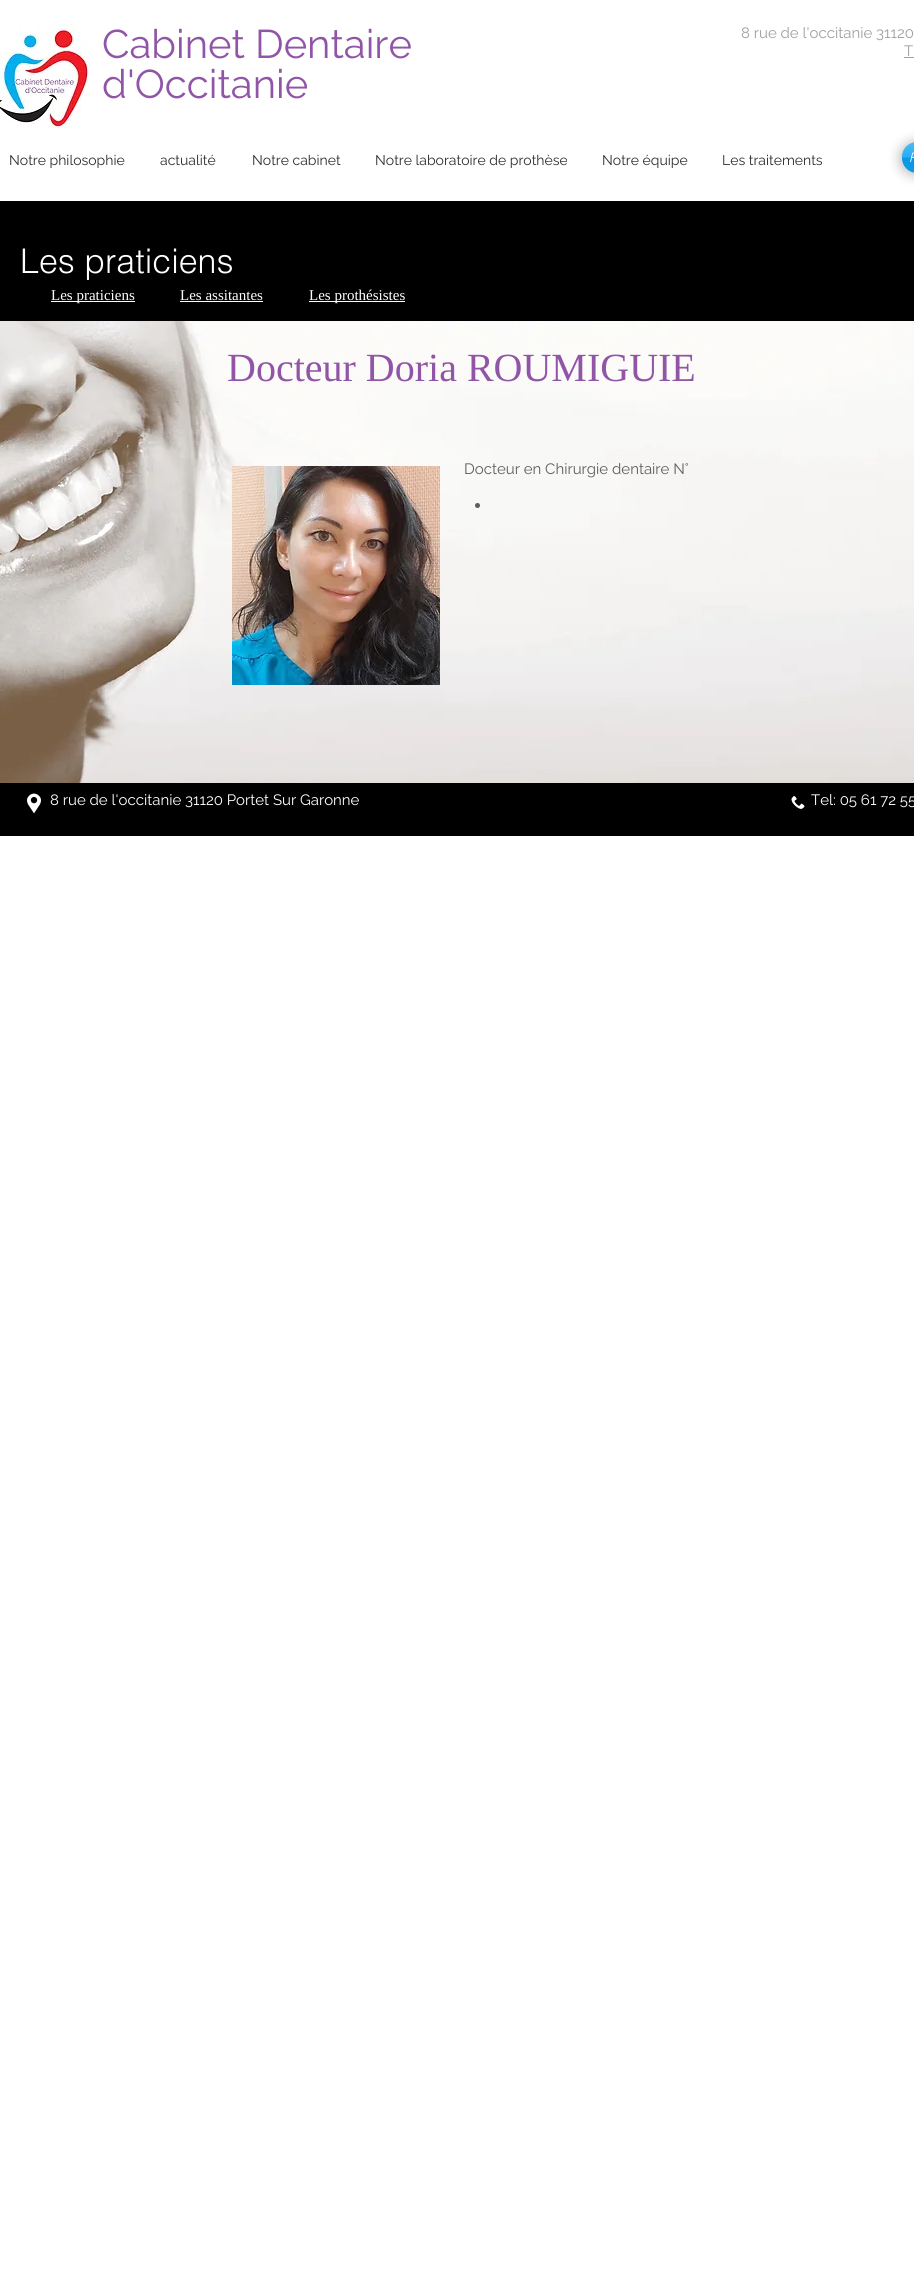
#include <cairo.h>
#include <math.h>
#include <stddef.h>


static void set_color(cairo_t *cr, unsigned color) {
    cairo_set_source_rgb(cr, (color >> 16) / 255.0, (color >> 8 & 255) / 255.0, (color & 255) / 255.0);
}

static void draw_text(cairo_t *cr, double x, double y, const char *s, const char *family, double size, int italic, int bold, unsigned color) {
    cairo_select_font_face(cr, family, italic ? CAIRO_FONT_SLANT_ITALIC : CAIRO_FONT_SLANT_NORMAL,
        bold ? CAIRO_FONT_WEIGHT_BOLD : CAIRO_FONT_WEIGHT_NORMAL);
    cairo_set_font_size(cr, size);
    set_color(cr, color);
    cairo_move_to(cr, x, y);
    cairo_show_text(cr, s);
}

static void fill_rect(cairo_t *cr, double x, double y, double w, double h, unsigned color) {
    set_color(cr, color);
    cairo_rectangle(cr, x, y, w, h);
    cairo_fill(cr);
}

static void rounded_rect(cairo_t *cr, double x, double y, double w, double h, double r) {
    cairo_new_sub_path(cr);
    cairo_arc(cr, x + w - r, y + h - r, r, 0, M_PI / 2);
    cairo_arc(cr, x + r, y + h - r, r, M_PI / 2, M_PI);
    cairo_arc(cr, x + r, y + r, r, M_PI, 1.5 * M_PI);
    cairo_arc(cr, x + w - r, y + r, r, 1.5 * M_PI, 2 * M_PI);
    cairo_close_path(cr);
}

static void draw_shadow(cairo_t *cr, double x, double y, double w, double h, double r, double blur, double alpha) {
    cairo_push_group_with_content(cr, CAIRO_CONTENT_ALPHA);
    cairo_set_operator(cr, CAIRO_OPERATOR_SOURCE);
    for (int i = 15; i >= -15 && fmin(w, h) + blur * i / 3 > 0; i -= 2) {
        double e = blur * i / 6;
        cairo_set_source_rgba(cr, 0, 0, 0, alpha * erfc((i - 1) / 8.5) / 2);
        rounded_rect(cr, x - e, y - e, w + 2 * e, h + 2 * e, fmax(0, fmin(r + e + blur * .6, fmin(w, h) / 2 + e)));
        cairo_fill(cr);
    }
    cairo_pattern_t *soft = cairo_pop_group(cr);
    cairo_mask(cr, soft);
    cairo_pattern_destroy(soft);
}

static void draw_image(cairo_t *cr, const char *path, double x, double y, double w, double h) {
    cairo_surface_t *image = cairo_image_surface_create_from_png(path);
    cairo_save(cr);
    cairo_set_source_surface(cr, image, x, y);
    cairo_rectangle(cr, x, y, w, h);
    cairo_fill(cr);
    cairo_restore(cr);
    cairo_surface_destroy(image);
}

int main(void) {
    cairo_surface_t *surface = cairo_image_surface_create(CAIRO_FORMAT_RGB24, 914, 2280);
    cairo_t *cr = cairo_create(surface);
    cairo_font_options_t *options = cairo_font_options_create();
    cairo_font_options_set_hint_metrics(options, CAIRO_HINT_METRICS_OFF);
    cairo_font_options_set_hint_style(options, CAIRO_HINT_STYLE_NONE);
    cairo_set_font_options(cr, options);
    cairo_set_miter_limit(cr, 4);
    set_color(cr, 0xFFFFFF);
    cairo_paint(cr);
    draw_image(cr, "assets/img1.png", 0, 24, 89, 104);
    draw_text(cr, 102, 58, "Cabinet Dentaire", "Raleway", 40, 0, 0, 0x9155A7);
    draw_text(cr, 102, 98, "d'Occitanie", "Raleway", 40, 0, 0, 0x9155A7);
    draw_text(cr, 741, 38, "8 rue de l'occitanie 31120", "Raleway", 15, 0, 0, 0xA0A09F);
    draw_text(cr, 904, 56, "T", "Raleway", 15, 0, 0, 0xA0A09F);
    fill_rect(cr, 904, 57, 10, 1, 0xA0A09F);
    draw_text(cr, 9, 165, "Notre philosophie", "Raleway", 14, 0, 0, 0x2F2E2E);
    draw_text(cr, 160, 165, "actualité", "Raleway", 14, 0, 0, 0x2F2E2E);
    draw_text(cr, 252, 165, "Notre cabinet", "Raleway", 14, 0, 0, 0x2F2E2E);
    draw_text(cr, 375, 165, "Notre laboratoire de prothèse", "Raleway", 14, 0, 0, 0x2F2E2E);
    draw_text(cr, 602, 165, "Notre équipe", "Raleway", 14, 0, 0, 0x2F2E2E);
    draw_text(cr, 722, 165, "Les traitements", "Raleway", 14, 0, 0, 0x2F2E2E);
    set_color(cr, 0x000000);
    draw_shadow(cr, 901, 143, 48, 31, 15, 6.5, 0.3);
    set_color(cr, 0x0CA2F2);
    rounded_rect(cr, 902, 142, 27, 31, 15);
    cairo_fill(cr);
    draw_image(cr, "assets/img2.png", 902, 142, 12, 30);
    draw_text(cr, 909, 162, "P", "helvetica Light", 13, 1, 0, 0xFFFFFF);
    fill_rect(cr, 0, 201, 914, 120, 0x000000);
    draw_text(cr, 20, 273, "Les praticiens", "helvetica Light", 34, 0, 0, 0xFFFFFF);
    fill_rect(cr, 51, 301, 84, 1, 0xFFFFFF);
    draw_text(cr, 51, 300, "Les praticiens", "Liberation Serif", 15, 0, 0, 0xFFFFFF);
    draw_text(cr, 180, 300, "Les assitantes", "Liberation Serif", 15, 0, 0, 0xFFFFFF);
    fill_rect(cr, 180, 301, 83, 1, 0xFFFFFF);
    fill_rect(cr, 309, 301, 96, 1, 0xFFFFFF);
    draw_text(cr, 309, 300, "Les prothésistes", "Liberation Serif", 15, 0, 0, 0xFFFFFF);
    draw_image(cr, "assets/img3.png", 0, 321, 914, 462);
    draw_text(cr, 227, 381, "Docteur Doria ROUMIGUIE", "Liberation Serif", 40, 0, 0, 0x9155A7);
    draw_image(cr, "assets/img4.png", 232, 466, 208, 219);
    draw_text(cr, 464, 474, "Docteur en Chirurgie dentaire N°", "Raleway", 15, 0, 0, 0x605E5E);
    cairo_new_path(cr);
    cairo_arc(cr, 477.5, 505.5, 2.5, 0, 2 * M_PI);
    cairo_fill(cr);
    fill_rect(cr, 0, 783, 914, 53, 0x000000);
    draw_image(cr, "assets/img5.png", 27, 793, 14, 21);
    draw_text(cr, 50, 805, "8 rue de l'occitanie 31120 Portet Sur Garonne", "Raleway", 15, 0, 0, 0xFFFFFF);
    draw_image(cr, "assets/img6.png", 791, 796, 14, 13);
    draw_text(cr, 811, 805, "Tel: 05 61 72 55", "Raleway", 15, 0, 0, 0xFFFFFF);
    cairo_surface_write_to_png(surface, "output.png");
    cairo_font_options_destroy(options);
    cairo_destroy(cr);
    cairo_surface_destroy(surface);
    return 0;
}
